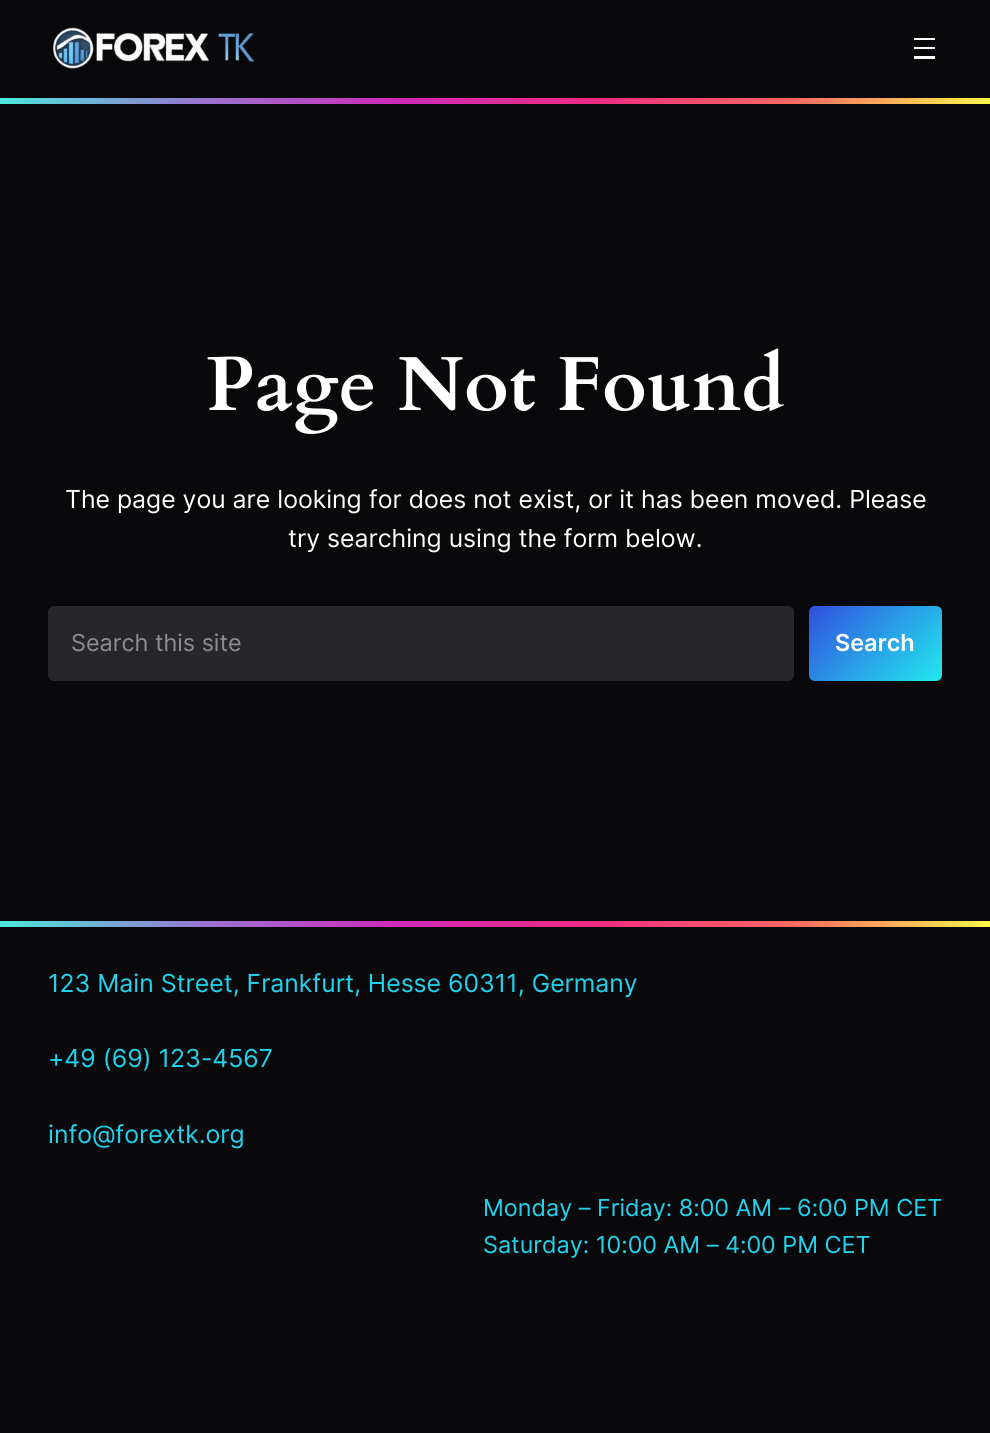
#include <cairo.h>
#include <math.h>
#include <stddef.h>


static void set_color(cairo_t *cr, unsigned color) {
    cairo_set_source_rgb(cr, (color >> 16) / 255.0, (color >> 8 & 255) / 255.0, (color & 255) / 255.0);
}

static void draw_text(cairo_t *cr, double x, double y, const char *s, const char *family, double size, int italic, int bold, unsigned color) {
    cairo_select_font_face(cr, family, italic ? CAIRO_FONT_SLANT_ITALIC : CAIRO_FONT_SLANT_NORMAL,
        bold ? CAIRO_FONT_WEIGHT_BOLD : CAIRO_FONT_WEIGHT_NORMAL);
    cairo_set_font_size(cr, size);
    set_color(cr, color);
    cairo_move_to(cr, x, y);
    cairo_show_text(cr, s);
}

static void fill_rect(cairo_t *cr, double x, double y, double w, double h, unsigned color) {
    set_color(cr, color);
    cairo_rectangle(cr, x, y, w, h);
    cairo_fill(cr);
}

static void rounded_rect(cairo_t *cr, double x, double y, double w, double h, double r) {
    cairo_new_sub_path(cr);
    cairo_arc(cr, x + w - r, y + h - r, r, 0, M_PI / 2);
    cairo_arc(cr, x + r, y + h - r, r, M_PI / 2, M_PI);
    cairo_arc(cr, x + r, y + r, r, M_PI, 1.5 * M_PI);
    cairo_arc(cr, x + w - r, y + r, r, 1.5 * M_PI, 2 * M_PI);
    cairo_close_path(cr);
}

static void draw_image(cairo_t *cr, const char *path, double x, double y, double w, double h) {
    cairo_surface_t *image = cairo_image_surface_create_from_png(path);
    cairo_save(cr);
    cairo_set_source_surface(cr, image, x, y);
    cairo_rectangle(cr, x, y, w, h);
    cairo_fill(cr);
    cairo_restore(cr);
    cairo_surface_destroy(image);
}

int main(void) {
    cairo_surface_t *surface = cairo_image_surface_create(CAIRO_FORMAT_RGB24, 990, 1433);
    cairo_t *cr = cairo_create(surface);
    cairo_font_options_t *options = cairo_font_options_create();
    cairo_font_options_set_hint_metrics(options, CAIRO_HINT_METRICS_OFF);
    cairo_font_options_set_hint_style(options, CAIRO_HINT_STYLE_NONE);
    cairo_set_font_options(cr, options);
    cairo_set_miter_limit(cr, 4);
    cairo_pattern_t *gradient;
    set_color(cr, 0x09090B);
    cairo_paint(cr);
    draw_image(cr, "assets/img1.png", 53, 27, 202, 42);
    fill_rect(cr, 914, 38, 21, 2, 0xFFFFFF);
    fill_rect(cr, 914, 47, 21, 2, 0xFFFFFF);
    fill_rect(cr, 914, 56, 21, 3, 0xFFFFFF);
    gradient = cairo_pattern_create_linear(246, -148, 744, 350);
    cairo_pattern_add_color_stop_rgba(gradient, 0, 0.29, 0.918, 0.863, 1);
    cairo_pattern_add_color_stop_rgba(gradient, 0.2, 0.592, 0.471, 0.82, 1);
    cairo_pattern_add_color_stop_rgba(gradient, 0.4, 0.812, 0.165, 0.729, 1);
    cairo_pattern_add_color_stop_rgba(gradient, 0.6, 0.933, 0.173, 0.51, 1);
    cairo_pattern_add_color_stop_rgba(gradient, 0.8, 0.984, 0.412, 0.384, 1);
    cairo_pattern_add_color_stop_rgba(gradient, 1, 0.996, 0.973, 0.298, 1);
    cairo_set_source(cr, gradient);
    cairo_pattern_destroy(gradient);
    cairo_rectangle(cr, 0, 98, 990, 6);
    cairo_fill(cr);
    draw_text(cr, 206, 410, "Page Not Found", "Cardo", 76.75, 0, 1, 0xFFFFFF);
    draw_text(cr, 65, 508, "The page you are looking for does not exist, or it has been moved. Please", "Inter", 24.8, 0, 0, 0xFFFFFF);
    draw_text(cr, 288, 547, "try searching using the form below.", "Inter", 24.8, 0, 0, 0xFFFFFF);
    set_color(cr, 0x27272A);
    rounded_rect(cr, 48, 606, 746, 75, 6);
    cairo_fill(cr);
    draw_text(cr, 71, 651, "Search this site", "Inter", 23.4, 0, 0, 0x8E8E90);
    gradient = cairo_pattern_create_linear(823, 591, 927, 696);
    cairo_pattern_add_color_stop_rgba(gradient, 0, 0.192, 0.306, 0.875, 1);
    cairo_pattern_add_color_stop_rgba(gradient, 1, 0.133, 0.918, 0.933, 1);
    cairo_set_source(cr, gradient);
    cairo_pattern_destroy(gradient);
    rounded_rect(cr, 809, 606, 133, 75, 6);
    cairo_fill(cr);
    draw_text(cr, 835, 651, "Search", "Inter SemiBold", 23.4, 0, 0, 0xFFFFFF);
    gradient = cairo_pattern_create_linear(246, 675, 744, 1173);
    cairo_pattern_add_color_stop_rgba(gradient, 0, 0.29, 0.918, 0.863, 1);
    cairo_pattern_add_color_stop_rgba(gradient, 0.2, 0.592, 0.471, 0.82, 1);
    cairo_pattern_add_color_stop_rgba(gradient, 0.4, 0.812, 0.165, 0.729, 1);
    cairo_pattern_add_color_stop_rgba(gradient, 0.6, 0.933, 0.173, 0.51, 1);
    cairo_pattern_add_color_stop_rgba(gradient, 0.8, 0.984, 0.412, 0.384, 1);
    cairo_pattern_add_color_stop_rgba(gradient, 1, 0.996, 0.973, 0.298, 1);
    cairo_set_source(cr, gradient);
    cairo_pattern_destroy(gradient);
    cairo_rectangle(cr, 0, 921, 990, 6);
    cairo_fill(cr);
    draw_text(cr, 48, 992, "123 Main Street, Frankfurt, Hesse 60311, Germany", "Inter", 24.8, 0, 0, 0x22D3EE);
    draw_text(cr, 48, 1067, "+49 (69) 123-4567", "Inter", 24.8, 0, 0, 0x22D3EE);
    draw_text(cr, 48, 1143, "info@forextk.org", "Inter", 24.8, 0, 0, 0x22D3EE);
    draw_text(cr, 483, 1216, "Monday – Friday: 8:00 AM – 6:00 PM CET", "Inter", 23.4, 0, 0, 0x22D3EE);
    draw_text(cr, 483, 1253, "Saturday: 10:00 AM – 4:00 PM CET", "Inter", 23.4, 0, 0, 0x22D3EE);
    cairo_surface_write_to_png(surface, "output.png");
    cairo_font_options_destroy(options);
    cairo_destroy(cr);
    cairo_surface_destroy(surface);
    return 0;
}
